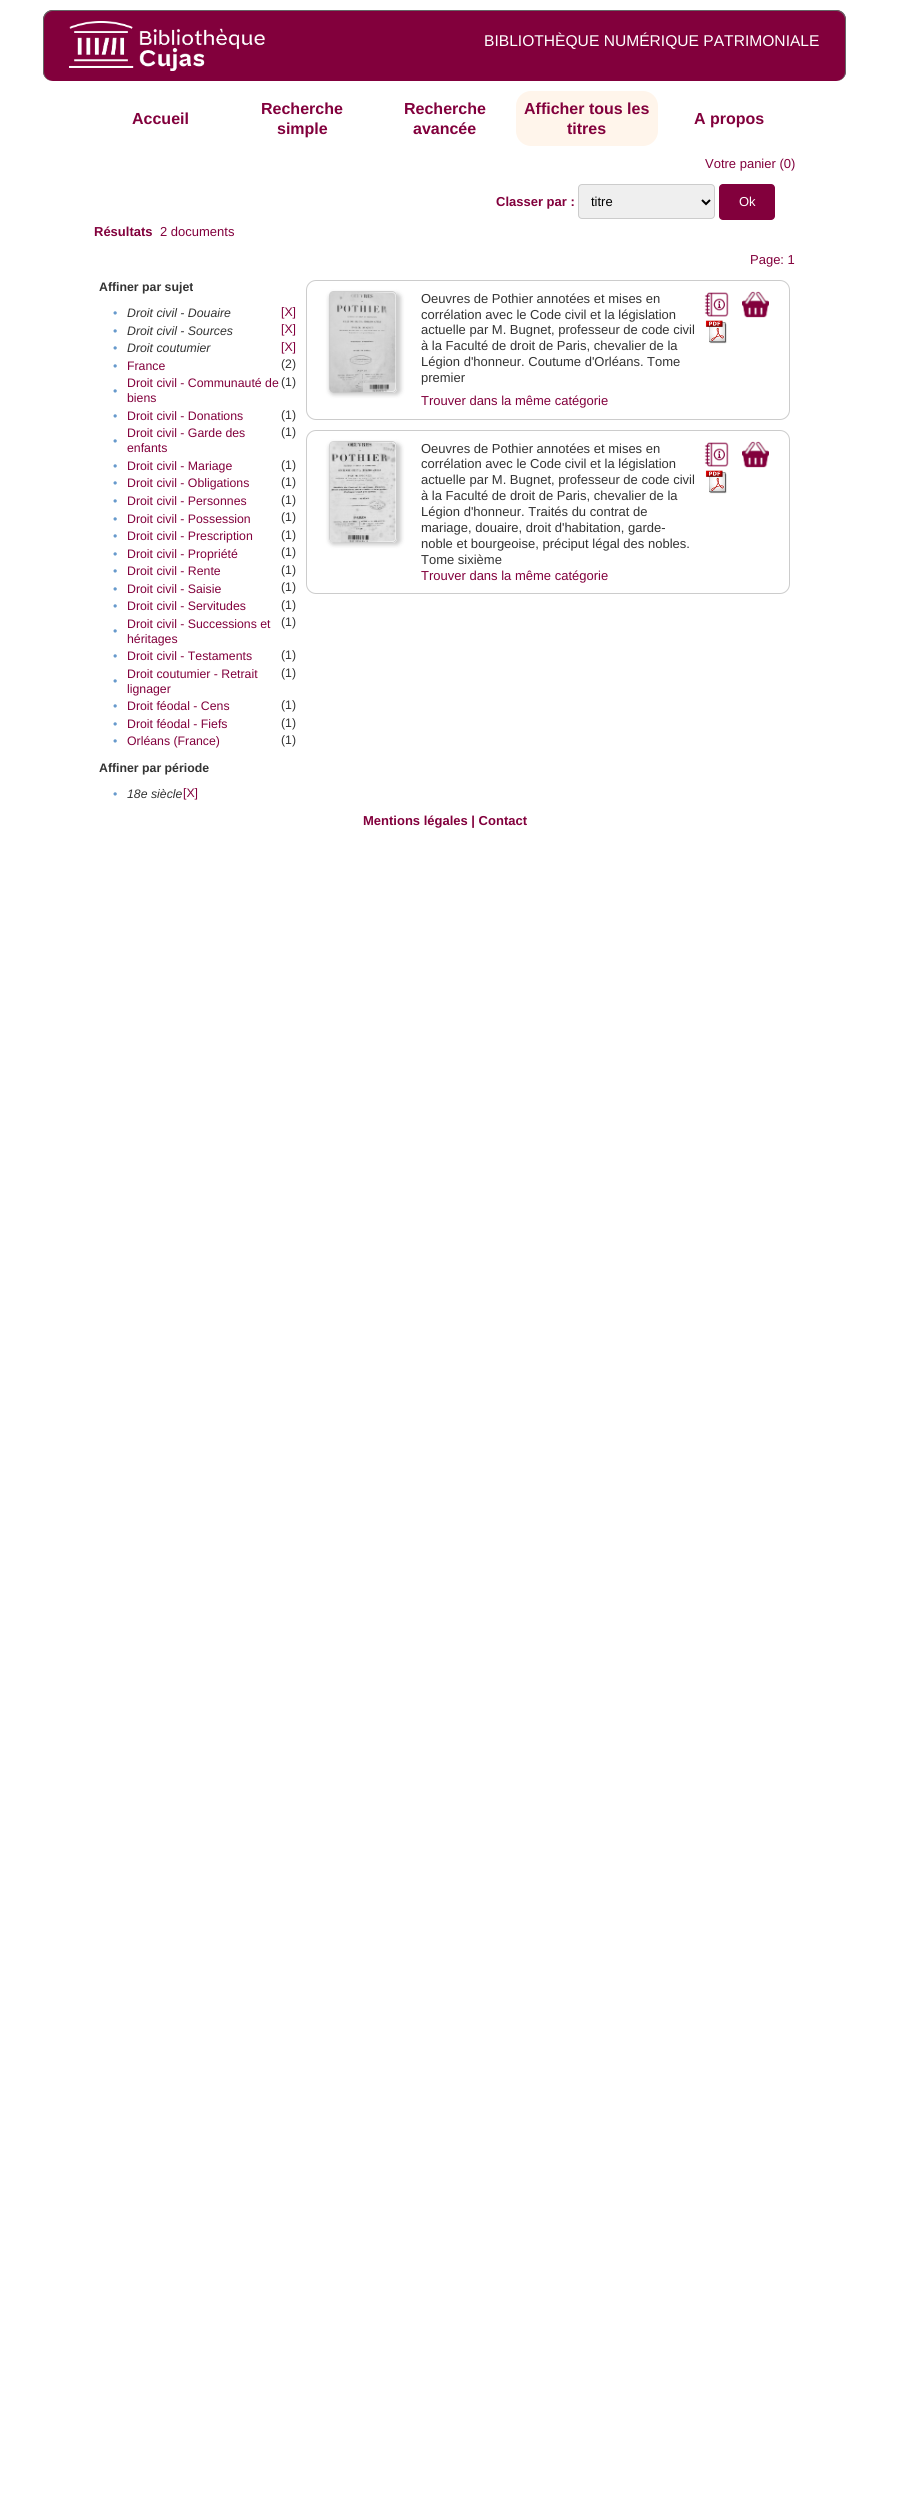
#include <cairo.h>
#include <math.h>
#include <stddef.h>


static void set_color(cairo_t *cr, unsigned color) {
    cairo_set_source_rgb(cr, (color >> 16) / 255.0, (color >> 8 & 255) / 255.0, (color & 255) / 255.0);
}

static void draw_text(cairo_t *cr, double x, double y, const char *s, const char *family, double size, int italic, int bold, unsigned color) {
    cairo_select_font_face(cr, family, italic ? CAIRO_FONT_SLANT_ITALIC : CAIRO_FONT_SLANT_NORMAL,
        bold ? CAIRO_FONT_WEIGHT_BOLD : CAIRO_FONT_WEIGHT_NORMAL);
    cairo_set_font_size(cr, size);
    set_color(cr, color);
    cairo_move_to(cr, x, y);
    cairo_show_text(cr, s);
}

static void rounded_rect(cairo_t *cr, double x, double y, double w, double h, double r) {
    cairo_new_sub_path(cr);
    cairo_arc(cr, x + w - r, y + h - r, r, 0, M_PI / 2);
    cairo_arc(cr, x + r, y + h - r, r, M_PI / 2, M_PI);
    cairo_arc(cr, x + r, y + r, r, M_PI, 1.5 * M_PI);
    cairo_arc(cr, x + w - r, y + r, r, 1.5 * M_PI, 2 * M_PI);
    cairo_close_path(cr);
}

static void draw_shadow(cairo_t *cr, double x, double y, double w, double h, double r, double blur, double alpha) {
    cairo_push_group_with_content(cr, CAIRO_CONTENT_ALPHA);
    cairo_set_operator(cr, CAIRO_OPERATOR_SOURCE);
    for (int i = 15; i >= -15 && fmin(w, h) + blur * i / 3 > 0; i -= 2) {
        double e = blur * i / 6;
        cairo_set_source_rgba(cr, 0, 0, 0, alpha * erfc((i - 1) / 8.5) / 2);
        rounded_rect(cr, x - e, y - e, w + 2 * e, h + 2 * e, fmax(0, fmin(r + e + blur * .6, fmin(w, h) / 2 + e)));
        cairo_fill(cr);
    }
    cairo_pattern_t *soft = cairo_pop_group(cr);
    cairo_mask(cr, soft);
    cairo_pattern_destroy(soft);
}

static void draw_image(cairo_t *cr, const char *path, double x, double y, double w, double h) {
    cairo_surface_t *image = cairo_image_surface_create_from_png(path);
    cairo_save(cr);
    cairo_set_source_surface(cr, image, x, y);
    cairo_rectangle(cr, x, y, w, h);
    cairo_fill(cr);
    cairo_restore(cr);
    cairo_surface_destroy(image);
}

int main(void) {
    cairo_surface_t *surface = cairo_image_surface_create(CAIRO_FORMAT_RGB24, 898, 2495);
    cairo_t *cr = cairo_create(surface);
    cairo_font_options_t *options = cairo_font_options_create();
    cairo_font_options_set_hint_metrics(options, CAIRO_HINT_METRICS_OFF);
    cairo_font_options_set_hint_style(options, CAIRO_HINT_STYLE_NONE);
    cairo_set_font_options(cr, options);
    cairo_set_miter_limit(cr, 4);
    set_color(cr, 0xFFFFFF);
    cairo_paint(cr);
    set_color(cr, 0x82003C);
    rounded_rect(cr, 43, 10, 803, 71, 10);
    cairo_fill(cr);
    set_color(cr, 0x666666);
    cairo_set_fill_rule(cr, CAIRO_FILL_RULE_EVEN_ODD);
    cairo_new_path(cr);
    cairo_move_to(cr, 53, 10);
    cairo_line_to(cr, 836, 10);
    cairo_curve_to(cr, 842, 10, 846, 14, 846, 20);
    cairo_line_to(cr, 846, 71);
    cairo_curve_to(cr, 846, 77, 842, 81, 836, 81);
    cairo_line_to(cr, 53, 81);
    cairo_curve_to(cr, 47, 81, 43, 77, 43, 71);
    cairo_line_to(cr, 43, 20);
    cairo_curve_to(cr, 43, 14, 47, 10, 53, 10);
    cairo_close_path(cr);
    cairo_move_to(cr, 53, 11);
    cairo_line_to(cr, 836, 11);
    cairo_curve_to(cr, 841, 11, 845, 15, 845, 20);
    cairo_line_to(cr, 845, 71);
    cairo_curve_to(cr, 845, 77, 841, 81, 836, 81);
    cairo_line_to(cr, 53, 81);
    cairo_curve_to(cr, 48, 81, 44, 77, 44, 71);
    cairo_line_to(cr, 44, 20);
    cairo_curve_to(cr, 44, 15, 48, 11, 53, 11);
    cairo_close_path(cr);
    cairo_fill(cr);
    draw_image(cr, "assets/img1.png", 69, 21, 196, 50);
    draw_text(cr, 484, 46, "BIBLIOTHÈQUE NUMÉRIQUE PATRIMONIALE", "Liberation Sans", 15.6, 0, 0, 0xFFFFFF);
    draw_text(cr, 132, 124, "Accueil", "Liberation Sans", 16, 0, 1, 0x82003C);
    draw_text(cr, 261, 114, "Recherche", "Liberation Sans", 16, 0, 1, 0x82003C);
    draw_text(cr, 277, 134, "simple", "Liberation Sans", 16, 0, 1, 0x82003C);
    draw_text(cr, 404, 114, "Recherche", "Liberation Sans", 16, 0, 1, 0x82003C);
    draw_text(cr, 413, 134, "avancée", "Liberation Sans", 16, 0, 1, 0x82003C);
    set_color(cr, 0xFFF5EB);
    rounded_rect(cr, 516, 91, 142, 55, 15);
    cairo_fill(cr);
    draw_text(cr, 524, 114, "Afficher tous les", "Liberation Sans", 16, 0, 1, 0x82003C);
    draw_text(cr, 567, 134, "titres", "Liberation Sans", 16, 0, 1, 0x82003C);
    draw_text(cr, 694, 124, "A propos", "Liberation Sans", 16, 0, 1, 0x82003C);
    draw_text(cr, 705, 168, "Votre panier (0)", "Liberation Sans", 13, 0, 0, 0x82003C);
    draw_text(cr, 496, 206, "Classer par :", "Liberation Sans", 13, 0, 1, 0x82003C);
    set_color(cr, 0xEFEFEF);
    rounded_rect(cr, 578.5, 184.5, 136, 34, 3.5);
    cairo_fill_preserve(cr);
    set_color(cr, 0xCCCCCC);
    cairo_set_line_width(cr, 1);
    cairo_stroke(cr);
    cairo_new_path(cr);
    cairo_move_to(cr, 702, 200);
    cairo_line_to(cr, 706, 204);
    cairo_line_to(cr, 710, 200);
    set_color(cr, 0x000000);
    cairo_set_line_width(cr, 2);
    cairo_stroke(cr);
    draw_text(cr, 591, 206, "titre", "Liberation Sans", 13, 0, 0, 0x000000);
    set_color(cr, 0x82003C);
    rounded_rect(cr, 719, 184, 56, 36, 4);
    cairo_fill(cr);
    draw_text(cr, 739, 206, "Ok", "Liberation Sans", 13, 0, 0, 0xFFFFFF);
    draw_text(cr, 94, 236, "Résultats", "Liberation Sans", 13, 0, 1, 0x82003C);
    draw_text(cr, 160, 236, "2 documents", "Liberation Sans", 13, 0, 0, 0x82003C);
    draw_text(cr, 750, 264, "Page: 1", "Liberation Sans", 13, 0, 0, 0x82003C);
    draw_text(cr, 99, 291, "Affiner par sujet", "Liberation Sans", 12.3, 0, 1, 0x333333);
    draw_text(cr, 113, 317, "•", "Liberation Sans", 12.3, 0, 0, 0x6699CC);
    draw_text(cr, 127, 317, "Droit civil - Douaire", "Liberation Sans", 12.3, 1, 0, 0x333333);
    draw_text(cr, 281, 316, "[X]", "Liberation Sans", 12.3, 0, 0, 0x82003C);
    draw_text(cr, 113, 335, "•", "Liberation Sans", 12.3, 0, 0, 0x6699CC);
    draw_text(cr, 127, 335, "Droit civil - Sources", "Liberation Sans", 12.3, 1, 0, 0x333333);
    draw_text(cr, 281, 333, "[X]", "Liberation Sans", 12.3, 0, 0, 0x82003C);
    draw_text(cr, 113, 352, "•", "Liberation Sans", 12.3, 0, 0, 0x6699CC);
    draw_text(cr, 127, 352, "Droit coutumier", "Liberation Sans", 12.3, 1, 0, 0x333333);
    draw_text(cr, 281, 351, "[X]", "Liberation Sans", 12.3, 0, 0, 0x82003C);
    draw_text(cr, 113, 370, "•", "Liberation Sans", 12.3, 0, 0, 0x6699CC);
    draw_text(cr, 127, 370, "France", "Liberation Sans", 12.3, 0, 0, 0x82003C);
    draw_text(cr, 281, 368, "(2)", "Liberation Sans", 12.3, 0, 0, 0x333333);
    draw_text(cr, 127, 387, "Droit civil - Communauté de", "Liberation Sans", 12.3, 0, 0, 0x82003C);
    draw_text(cr, 127, 402, "biens", "Liberation Sans", 12.3, 0, 0, 0x82003C);
    draw_text(cr, 281, 386, "(1)", "Liberation Sans", 12.3, 0, 0, 0x333333);
    draw_text(cr, 113, 395, "•", "Liberation Sans", 12.3, 0, 0, 0x6699CC);
    draw_text(cr, 113, 420, "•", "Liberation Sans", 12.3, 0, 0, 0x6699CC);
    draw_text(cr, 127, 420, "Droit civil - Donations", "Liberation Sans", 12.3, 0, 0, 0x82003C);
    draw_text(cr, 281, 419, "(1)", "Liberation Sans", 12.3, 0, 0, 0x333333);
    draw_text(cr, 113, 445, "•", "Liberation Sans", 12.3, 0, 0, 0x6699CC);
    draw_text(cr, 127, 437, "Droit civil - Garde des", "Liberation Sans", 12.3, 0, 0, 0x82003C);
    draw_text(cr, 127, 452, "enfants", "Liberation Sans", 12.3, 0, 0, 0x82003C);
    draw_text(cr, 281, 436, "(1)", "Liberation Sans", 12.3, 0, 0, 0x333333);
    draw_text(cr, 113, 470, "•", "Liberation Sans", 12.3, 0, 0, 0x6699CC);
    draw_text(cr, 127, 470, "Droit civil - Mariage", "Liberation Sans", 12.3, 0, 0, 0x82003C);
    draw_text(cr, 281, 469, "(1)", "Liberation Sans", 12.3, 0, 0, 0x333333);
    draw_text(cr, 113, 487, "•", "Liberation Sans", 12.3, 0, 0, 0x6699CC);
    draw_text(cr, 127, 487, "Droit civil - Obligations", "Liberation Sans", 12.3, 0, 0, 0x82003C);
    draw_text(cr, 281, 486, "(1)", "Liberation Sans", 12.3, 0, 0, 0x333333);
    draw_text(cr, 113, 505, "•", "Liberation Sans", 12.3, 0, 0, 0x6699CC);
    draw_text(cr, 127, 505, "Droit civil - Personnes", "Liberation Sans", 12.3, 0, 0, 0x82003C);
    draw_text(cr, 281, 504, "(1)", "Liberation Sans", 12.3, 0, 0, 0x333333);
    draw_text(cr, 113, 523, "•", "Liberation Sans", 12.3, 0, 0, 0x6699CC);
    draw_text(cr, 127, 523, "Droit civil - Possession", "Liberation Sans", 12.3, 0, 0, 0x82003C);
    draw_text(cr, 281, 521, "(1)", "Liberation Sans", 12.3, 0, 0, 0x333333);
    draw_text(cr, 113, 540, "•", "Liberation Sans", 12.3, 0, 0, 0x6699CC);
    draw_text(cr, 127, 540, "Droit civil - Prescription", "Liberation Sans", 12.3, 0, 0, 0x82003C);
    draw_text(cr, 281, 539, "(1)", "Liberation Sans", 12.3, 0, 0, 0x333333);
    draw_text(cr, 113, 558, "•", "Liberation Sans", 12.3, 0, 0, 0x6699CC);
    draw_text(cr, 127, 558, "Droit civil - Propriété", "Liberation Sans", 12.3, 0, 0, 0x82003C);
    draw_text(cr, 281, 556, "(1)", "Liberation Sans", 12.3, 0, 0, 0x333333);
    draw_text(cr, 113, 575, "•", "Liberation Sans", 12.3, 0, 0, 0x6699CC);
    draw_text(cr, 127, 575, "Droit civil - Rente", "Liberation Sans", 12.3, 0, 0, 0x82003C);
    draw_text(cr, 281, 574, "(1)", "Liberation Sans", 12.3, 0, 0, 0x333333);
    draw_text(cr, 113, 593, "•", "Liberation Sans", 12.3, 0, 0, 0x6699CC);
    draw_text(cr, 127, 593, "Droit civil - Saisie", "Liberation Sans", 12.3, 0, 0, 0x82003C);
    draw_text(cr, 281, 591, "(1)", "Liberation Sans", 12.3, 0, 0, 0x333333);
    draw_text(cr, 113, 610, "•", "Liberation Sans", 12.3, 0, 0, 0x6699CC);
    draw_text(cr, 127, 610, "Droit civil - Servitudes", "Liberation Sans", 12.3, 0, 0, 0x82003C);
    draw_text(cr, 281, 609, "(1)", "Liberation Sans", 12.3, 0, 0, 0x333333);
    draw_text(cr, 113, 635, "•", "Liberation Sans", 12.3, 0, 0, 0x6699CC);
    draw_text(cr, 127, 628, "Droit civil - Successions et", "Liberation Sans", 12.3, 0, 0, 0x82003C);
    draw_text(cr, 127, 643, "héritages", "Liberation Sans", 12.3, 0, 0, 0x82003C);
    draw_text(cr, 281, 626, "(1)", "Liberation Sans", 12.3, 0, 0, 0x333333);
    draw_text(cr, 113, 660, "•", "Liberation Sans", 12.3, 0, 0, 0x6699CC);
    draw_text(cr, 127, 660, "Droit civil - Testaments", "Liberation Sans", 12.3, 0, 0, 0x82003C);
    draw_text(cr, 281, 659, "(1)", "Liberation Sans", 12.3, 0, 0, 0x333333);
    draw_text(cr, 113, 685, "•", "Liberation Sans", 12.3, 0, 0, 0x6699CC);
    draw_text(cr, 127, 678, "Droit coutumier - Retrait", "Liberation Sans", 12.3, 0, 0, 0x82003C);
    draw_text(cr, 127, 693, "lignager", "Liberation Sans", 12.3, 0, 0, 0x82003C);
    draw_text(cr, 281, 677, "(1)", "Liberation Sans", 12.3, 0, 0, 0x333333);
    draw_text(cr, 113, 710, "•", "Liberation Sans", 12.3, 0, 0, 0x6699CC);
    draw_text(cr, 127, 710, "Droit féodal - Cens", "Liberation Sans", 12.3, 0, 0, 0x82003C);
    draw_text(cr, 281, 709, "(1)", "Liberation Sans", 12.3, 0, 0, 0x333333);
    draw_text(cr, 113, 728, "•", "Liberation Sans", 12.3, 0, 0, 0x6699CC);
    draw_text(cr, 127, 728, "Droit féodal - Fiefs", "Liberation Sans", 12.3, 0, 0, 0x82003C);
    draw_text(cr, 281, 727, "(1)", "Liberation Sans", 12.3, 0, 0, 0x333333);
    draw_text(cr, 113, 745, "•", "Liberation Sans", 12.3, 0, 0, 0x6699CC);
    draw_text(cr, 127, 745, "Orléans (France)", "Liberation Sans", 12.3, 0, 0, 0x82003C);
    draw_text(cr, 281, 744, "(1)", "Liberation Sans", 12.3, 0, 0, 0x333333);
    draw_text(cr, 99, 772, "Affiner par période", "Liberation Sans", 12.3, 0, 1, 0x333333);
    draw_text(cr, 113, 798, "•", "Liberation Sans", 12.3, 0, 0, 0x6699CC);
    draw_text(cr, 127, 798, "18e siècle", "Liberation Sans", 12.3, 1, 0, 0x333333);
    draw_text(cr, 183, 797, "[X]", "Liberation Sans", 12.3, 0, 0, 0x82003C);
    rounded_rect(cr, 306.5, 280.5, 483, 139, 9.5);
    set_color(cr, 0xCCCCCC);
    cairo_set_line_width(cr, 1);
    cairo_stroke(cr);
    cairo_save(cr);
    cairo_new_path(cr);
    cairo_move_to(cr, 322, 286);
    cairo_line_to(cr, 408, 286);
    cairo_line_to(cr, 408, 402);
    cairo_line_to(cr, 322, 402);
    cairo_close_path(cr);
    cairo_move_to(cr, 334, 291);
    cairo_line_to(cr, 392, 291);
    cairo_curve_to(cr, 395, 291, 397, 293, 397, 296);
    cairo_line_to(cr, 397, 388);
    cairo_curve_to(cr, 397, 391, 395, 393, 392, 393);
    cairo_line_to(cr, 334, 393);
    cairo_curve_to(cr, 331, 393, 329, 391, 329, 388);
    cairo_line_to(cr, 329, 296);
    cairo_curve_to(cr, 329, 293, 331, 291, 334, 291);
    cairo_close_path(cr);
    cairo_clip(cr);
    set_color(cr, 0x000000);
    draw_shadow(cr, 329, 293, 72, 102, 5, 2, 0.2);
    cairo_restore(cr);
    rounded_rect(cr, 329.5, 291.5, 67, 101, 4.5);
    cairo_stroke(cr);
    draw_image(cr, "assets/img2.png", 329, 291, 67, 102);
    draw_text(cr, 421, 303, "Oeuvres de Pothier annotées et mises en", "Liberation Sans", 13, 0, 0, 0x333333);
    draw_text(cr, 421, 319, "corrélation avec le Code civil et la législation", "Liberation Sans", 13, 0, 0, 0x333333);
    draw_text(cr, 421, 334, "actuelle par M. Bugnet, professeur de code civil", "Liberation Sans", 13, 0, 0, 0x333333);
    draw_text(cr, 421, 350, "à la Faculté de droit de Paris, chevalier de la", "Liberation Sans", 13, 0, 0, 0x333333);
    draw_text(cr, 421, 366, "Légion d'honneur. Coutume d'Orléans. Tome", "Liberation Sans", 13, 0, 0, 0x333333);
    draw_text(cr, 421, 382, "premier", "Liberation Sans", 13, 0, 0, 0x333333);
    draw_image(cr, "assets/img3.png", 704, 292, 25, 25);
    draw_image(cr, "assets/img4.png", 705, 320, 22, 24);
    draw_image(cr, "assets/img5.png", 742, 291, 27, 27);
    draw_text(cr, 421, 405, "Trouver dans la même catégorie", "Liberation Sans", 13, 0, 0, 0x82003C);
    rounded_rect(cr, 306.5, 430.5, 483, 163, 9.5);
    set_color(cr, 0xCCCCCC);
    cairo_stroke(cr);
    cairo_save(cr);
    cairo_new_path(cr);
    cairo_move_to(cr, 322, 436);
    cairo_line_to(cr, 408, 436);
    cairo_line_to(cr, 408, 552);
    cairo_line_to(cr, 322, 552);
    cairo_close_path(cr);
    cairo_move_to(cr, 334, 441);
    cairo_line_to(cr, 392, 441);
    cairo_curve_to(cr, 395, 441, 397, 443, 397, 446);
    cairo_line_to(cr, 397, 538);
    cairo_curve_to(cr, 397, 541, 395, 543, 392, 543);
    cairo_line_to(cr, 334, 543);
    cairo_curve_to(cr, 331, 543, 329, 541, 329, 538);
    cairo_line_to(cr, 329, 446);
    cairo_curve_to(cr, 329, 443, 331, 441, 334, 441);
    cairo_close_path(cr);
    cairo_clip(cr);
    set_color(cr, 0x000000);
    draw_shadow(cr, 329, 443, 72, 102, 5, 2, 0.2);
    cairo_restore(cr);
    rounded_rect(cr, 329.5, 441.5, 67, 101, 4.5);
    cairo_stroke(cr);
    draw_image(cr, "assets/img6.png", 329, 441, 67, 102);
    draw_text(cr, 421, 453, "Oeuvres de Pothier annotées et mises en", "Liberation Sans", 13, 0, 0, 0x333333);
    draw_text(cr, 421, 468, "corrélation avec le Code civil et la législation", "Liberation Sans", 13, 0, 0, 0x333333);
    draw_text(cr, 421, 484, "actuelle par M. Bugnet, professeur de code civil", "Liberation Sans", 13, 0, 0, 0x333333);
    draw_text(cr, 421, 500, "à la Faculté de droit de Paris, chevalier de la", "Liberation Sans", 13, 0, 0, 0x333333);
    draw_text(cr, 421, 516, "Légion d'honneur. Traités du contrat de", "Liberation Sans", 13, 0, 0, 0x333333);
    draw_text(cr, 421, 532, "mariage, douaire, droit d'habitation, garde-", "Liberation Sans", 13, 0, 0, 0x333333);
    draw_text(cr, 421, 548, "noble et bourgeoise, préciput légal des nobles.", "Liberation Sans", 13, 0, 0, 0x333333);
    draw_text(cr, 421, 564, "Tome sixième", "Liberation Sans", 13, 0, 0, 0x333333);
    draw_image(cr, "assets/img3.png", 704, 442, 25, 25);
    draw_image(cr, "assets/img7.png", 705, 470, 22, 24);
    draw_image(cr, "assets/img5.png", 742, 441, 27, 27);
    draw_text(cr, 421, 580, "Trouver dans la même catégorie", "Liberation Sans", 13, 0, 0, 0x82003C);
    draw_text(cr, 363, 825, "Mentions légales | Contact", "Liberation Sans", 13, 0, 1, 0x82003C);
    cairo_surface_write_to_png(surface, "output.png");
    cairo_font_options_destroy(options);
    cairo_destroy(cr);
    cairo_surface_destroy(surface);
    return 0;
}
